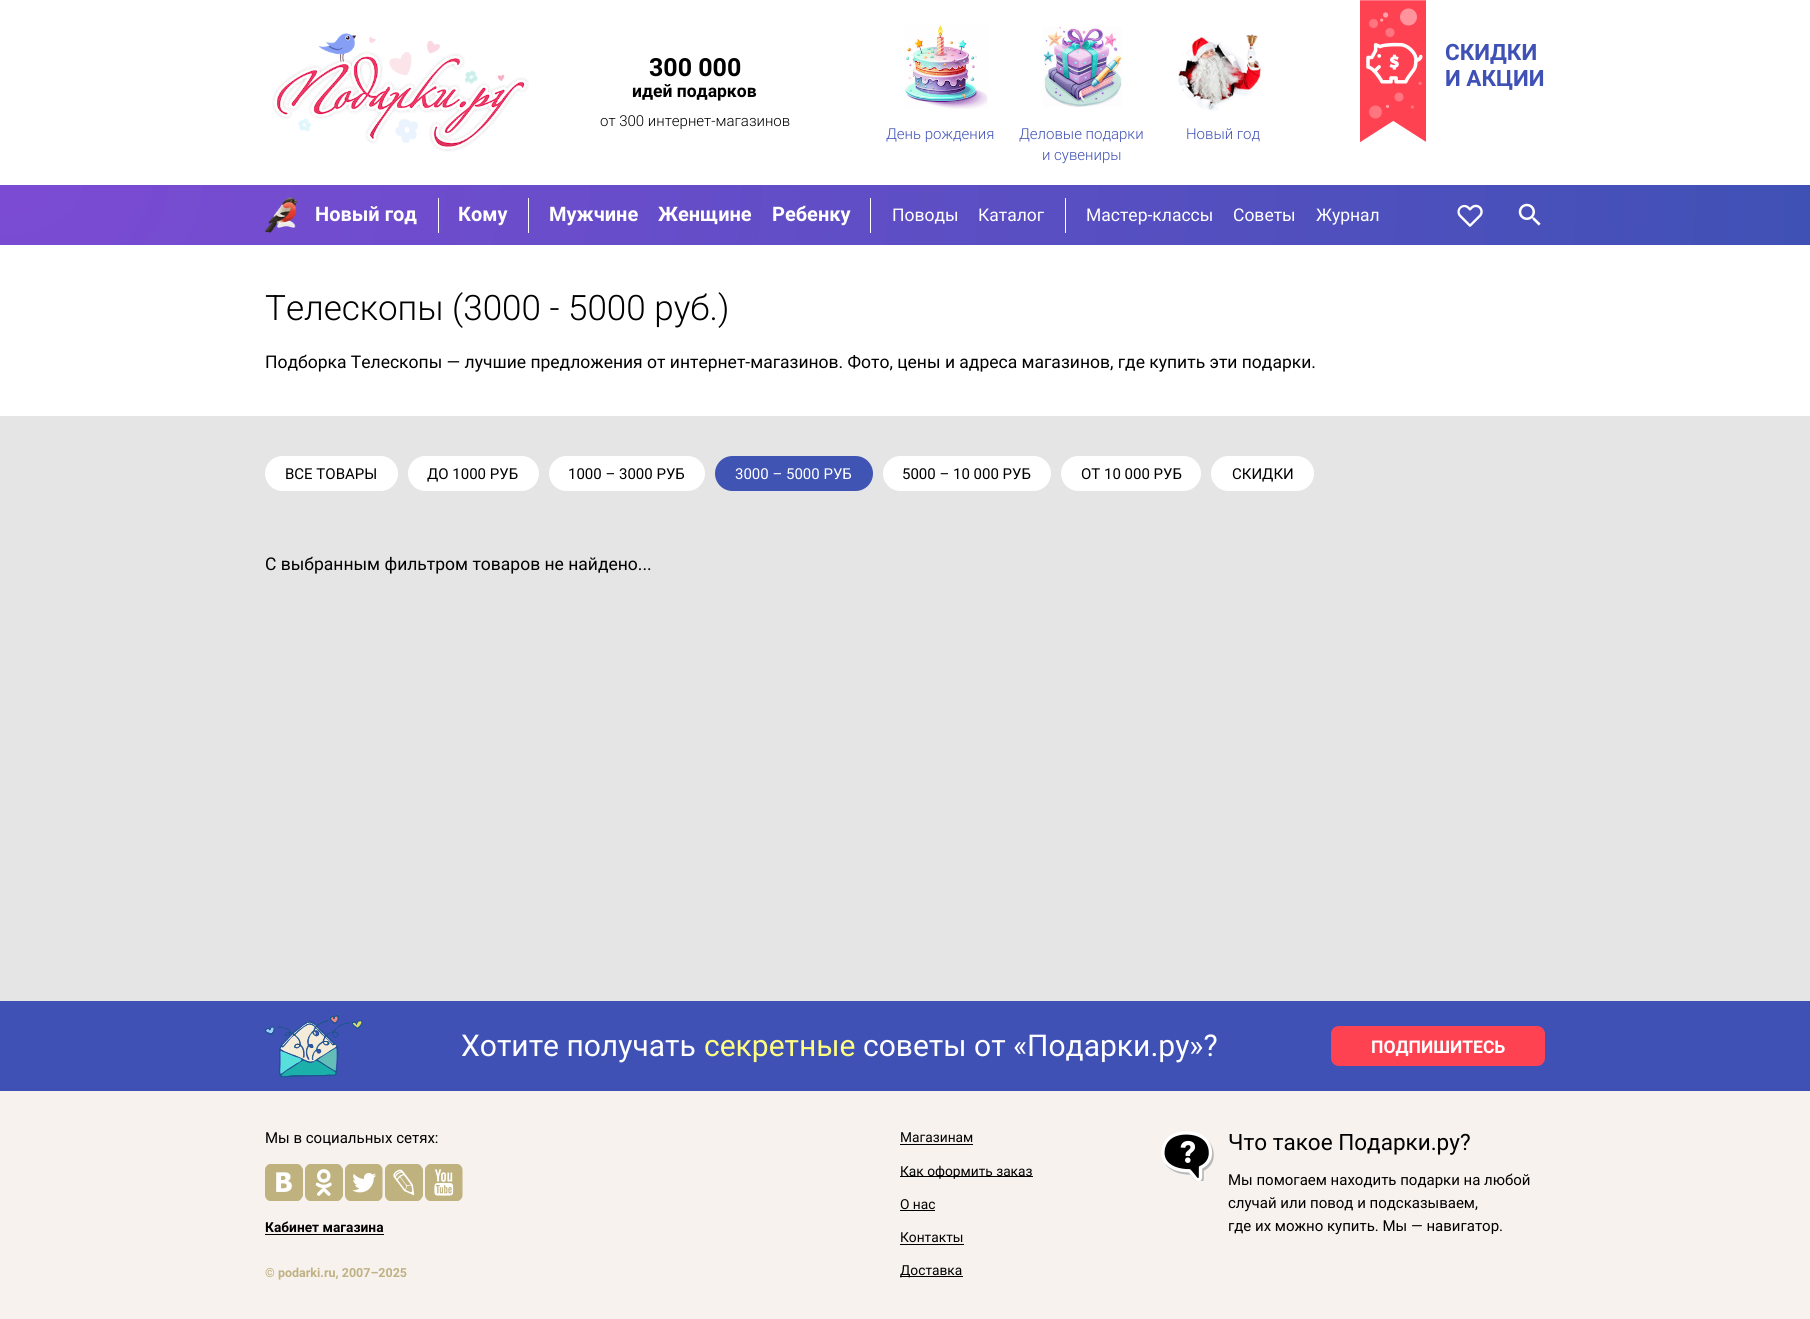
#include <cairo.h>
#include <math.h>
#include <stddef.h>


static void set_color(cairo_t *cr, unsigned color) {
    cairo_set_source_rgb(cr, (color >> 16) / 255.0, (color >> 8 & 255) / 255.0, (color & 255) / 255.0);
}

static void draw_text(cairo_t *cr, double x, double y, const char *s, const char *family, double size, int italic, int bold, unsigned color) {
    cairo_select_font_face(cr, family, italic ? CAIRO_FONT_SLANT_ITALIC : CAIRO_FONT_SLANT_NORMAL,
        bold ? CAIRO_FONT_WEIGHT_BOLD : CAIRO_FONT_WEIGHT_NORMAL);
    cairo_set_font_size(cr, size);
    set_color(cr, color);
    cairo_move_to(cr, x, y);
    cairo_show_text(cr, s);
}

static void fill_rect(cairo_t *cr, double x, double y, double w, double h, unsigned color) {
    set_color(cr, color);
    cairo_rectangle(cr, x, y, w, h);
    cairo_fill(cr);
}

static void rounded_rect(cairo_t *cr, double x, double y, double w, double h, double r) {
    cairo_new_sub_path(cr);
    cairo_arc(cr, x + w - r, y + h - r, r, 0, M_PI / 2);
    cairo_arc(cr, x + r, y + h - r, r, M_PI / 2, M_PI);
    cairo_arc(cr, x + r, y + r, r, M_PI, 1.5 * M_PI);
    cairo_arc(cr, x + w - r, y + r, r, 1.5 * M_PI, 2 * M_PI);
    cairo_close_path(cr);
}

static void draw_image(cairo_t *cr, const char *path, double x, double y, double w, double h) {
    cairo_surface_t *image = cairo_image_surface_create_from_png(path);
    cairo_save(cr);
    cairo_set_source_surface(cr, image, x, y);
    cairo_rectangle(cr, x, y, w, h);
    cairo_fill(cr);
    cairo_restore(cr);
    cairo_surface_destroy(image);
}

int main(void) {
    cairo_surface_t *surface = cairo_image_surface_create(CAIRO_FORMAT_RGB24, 1810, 1319);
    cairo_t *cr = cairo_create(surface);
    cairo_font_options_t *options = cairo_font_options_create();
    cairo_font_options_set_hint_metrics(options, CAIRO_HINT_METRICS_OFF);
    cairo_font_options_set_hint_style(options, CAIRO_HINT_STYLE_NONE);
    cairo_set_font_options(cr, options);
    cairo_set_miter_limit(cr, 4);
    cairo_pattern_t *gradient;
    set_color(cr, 0xFFFFFF);
    cairo_paint(cr);
    draw_image(cr, "assets/img1.png", 272, 33, 257, 119);
    draw_text(cr, 649, 76, "300 000", "Roboto", 25, 0, 1, 0x000000);
    draw_text(cr, 632, 97, "идей подарков", "Roboto", 17.5, 0, 1, 0x000000);
    draw_text(cr, 600, 126, "от 300 интернет-магазинов", "Roboto Light", 15, 0, 0, 0x000000);
    draw_image(cr, "assets/img2.png", 1360, 0, 66, 143);
    draw_text(cr, 1445, 60, "СКИДКИ", "Roboto", 22.5, 0, 1, 0x3F51B5);
    draw_text(cr, 1445, 86, "И АКЦИИ", "Roboto", 22.5, 0, 1, 0x3F51B5);
    draw_image(cr, "assets/img3.png", 904, 25, 84, 85);
    draw_text(cr, 886, 139, "День рождения", "Roboto Light", 15, 0, 0, 0x3F51B5);
    draw_image(cr, "assets/img4.png", 1043, 27, 79, 80);
    draw_text(cr, 1019, 139, "Деловые подарки", "Roboto Light", 15, 0, 0, 0x3F51B5);
    draw_text(cr, 1042, 160, "и сувениры", "Roboto Light", 15, 0, 0, 0x3F51B5);
    draw_image(cr, "assets/img5.png", 1178, 34, 83, 77);
    draw_text(cr, 1186, 139, "Новый год", "Roboto Light", 15, 0, 0, 0x3F51B5);
    gradient = cairo_pattern_create_radial(0, 0, 0, 0, 0, 1);
    cairo_pattern_set_matrix(gradient, &(cairo_matrix_t){1.0 / 1840, 0, 0, 1.0 / 1229, -1.0 * 0 / 1840, -1.0 * 185 / 1229});
    cairo_pattern_add_color_stop_rgba(gradient, 0, 0.486, 0.294, 0.831, 1);
    cairo_pattern_add_color_stop_rgba(gradient, 1, 0.247, 0.318, 0.71, 1);
    cairo_set_source(cr, gradient);
    cairo_pattern_destroy(gradient);
    cairo_rectangle(cr, 0, 185, 1810, 60);
    cairo_fill(cr);
    draw_image(cr, "assets/img6.png", 265, 197, 33, 36);
    draw_text(cr, 315, 221, "Новый год", "Roboto", 20, 0, 1, 0xFFFFFF);
    fill_rect(cr, 438, 198, 1, 35, 0xFFFFFF);
    draw_text(cr, 458, 221, "Кому", "Roboto", 20, 0, 1, 0xFFFFFF);
    fill_rect(cr, 528, 198, 1, 35, 0xFFFFFF);
    draw_text(cr, 549, 221, "Мужчине", "Roboto", 20, 0, 1, 0xFFFFFF);
    draw_text(cr, 658, 221, "Женщине", "Roboto", 20, 0, 1, 0xFFFFFF);
    draw_text(cr, 772, 221, "Ребенку", "Roboto", 20, 0, 1, 0xFFFFFF);
    fill_rect(cr, 870, 198, 1, 35, 0xFFFFFF);
    draw_text(cr, 892, 221, "Поводы", "Roboto", 17.5, 0, 0, 0xFFFFFF);
    draw_text(cr, 978, 221, "Каталог", "Roboto", 17.5, 0, 0, 0xFFFFFF);
    fill_rect(cr, 1065, 198, 1, 35, 0xFFFFFF);
    draw_text(cr, 1086, 221, "Мастер-классы", "Roboto", 17.5, 0, 0, 0xFFFFFF);
    draw_text(cr, 1233, 221, "Советы", "Roboto", 17.5, 0, 0, 0xFFFFFF);
    draw_text(cr, 1316, 221, "Журнал", "Roboto", 17.5, 0, 0, 0xFFFFFF);
    draw_image(cr, "assets/img7.png", 1457, 204, 26, 23);
    draw_image(cr, "assets/img8.png", 1518, 203, 23, 23);
    draw_text(cr, 265, 320, "Телескопы (3000 - 5000 руб.)", "Roboto Light", 35, 0, 0, 0x000000);
    draw_text(cr, 265, 368, "Подборка Телескопы — лучшие предложения от интернет-магазинов. Фото, цены и адреса магазинов, где купить эти подарки.", "Roboto", 17.5, 0, 0, 0x000000);
    fill_rect(cr, 0, 416, 1810, 585, 0xE5E5E5);
    set_color(cr, 0xFFFFFF);
    rounded_rect(cr, 265, 456, 133, 35, 17.5);
    cairo_fill(cr);
    draw_text(cr, 285, 479, "ВСЕ ТОВАРЫ", "Roboto", 15, 0, 0, 0x000000);
    set_color(cr, 0xFFFFFF);
    rounded_rect(cr, 408, 456, 131, 35, 17.5);
    cairo_fill(cr);
    draw_text(cr, 427, 479, "ДО 1000 РУБ", "Roboto", 15, 0, 0, 0x000000);
    set_color(cr, 0xFFFFFF);
    rounded_rect(cr, 549, 456, 156, 35, 17.5);
    cairo_fill(cr);
    draw_text(cr, 568, 479, "1000 – 3000 РУБ", "Roboto", 15, 0, 0, 0x000000);
    set_color(cr, 0x4054B3);
    rounded_rect(cr, 715, 456, 158, 35, 17.5);
    cairo_fill(cr);
    draw_text(cr, 735, 479, "3000 – 5000 РУБ", "Roboto", 15, 0, 0, 0xFFFFFF);
    rounded_rect(cr, 883, 456, 168, 35, 17.5);
    cairo_fill(cr);
    draw_text(cr, 902, 479, "5000 – 10 000 РУБ", "Roboto", 15, 0, 0, 0x000000);
    set_color(cr, 0xFFFFFF);
    rounded_rect(cr, 1061, 456, 140, 35, 17.5);
    cairo_fill(cr);
    draw_text(cr, 1081, 479, "ОТ 10 000 РУБ", "Roboto", 15, 0, 0, 0x000000);
    set_color(cr, 0xFFFFFF);
    rounded_rect(cr, 1211, 456, 103, 35, 17.5);
    cairo_fill(cr);
    draw_text(cr, 1232, 479, "СКИДКИ", "Roboto", 15, 0, 0, 0x000000);
    draw_text(cr, 265, 570, "С выбранным фильтром товаров не найдено...", "Roboto", 17.5, 0, 0, 0x000000);
    fill_rect(cr, 0, 1091, 1810, 228, 0xF7F2ED);
    fill_rect(cr, 0, 1001, 1810, 90, 0x3F51B5);
    draw_image(cr, "assets/img9.png", 265, 1015, 98, 63);
    draw_text(cr, 461, 1056, "Хотите получать", "Roboto", 30, 0, 0, 0xFFFFFF);
    draw_text(cr, 704, 1056, "секретные", "Roboto", 30, 0, 0, 0xFFFE80);
    draw_text(cr, 863, 1056, "советы от «Подарки.ру»?", "Roboto", 30, 0, 0, 0xFFFFFF);
    set_color(cr, 0xFF4252);
    rounded_rect(cr, 1331, 1026, 214, 40, 8);
    cairo_fill(cr);
    draw_text(cr, 1371, 1053, "ПОДПИШИТЕСЬ", "Roboto", 17.5, 0, 1, 0xFFFFFF);
    draw_text(cr, 265, 1143, "Мы в социальных сетях:", "Roboto", 15, 0, 0, 0x000000);
    draw_image(cr, "assets/img10.png", 265, 1164, 38, 37);
    draw_image(cr, "assets/img11.png", 305, 1164, 38, 37);
    draw_image(cr, "assets/img12.png", 345, 1164, 38, 37);
    draw_image(cr, "assets/img13.png", 385, 1164, 38, 37);
    draw_image(cr, "assets/img14.png", 425, 1164, 38, 37);
    draw_text(cr, 265, 1232, "Кабинет магазина", "Roboto", 13.75, 0, 1, 0x000000);
    fill_rect(cr, 265, 1234, 119, 1, 0x000000);
    draw_text(cr, 265, 1277, "© podarki.ru, 2007–2025", "Roboto", 12.5, 0, 1, 0xBFB183);
    draw_text(cr, 900, 1142, "Магазинам", "Roboto", 13.75, 0, 0, 0x000000);
    fill_rect(cr, 900, 1144, 73, 1, 0x000000);
    fill_rect(cr, 900, 1176, 133, 1, 0x000000);
    draw_text(cr, 900, 1176, "Как оформить заказ", "Roboto", 13.75, 0, 0, 0x000000);
    draw_text(cr, 900, 1209, "О нас", "Roboto", 13.75, 0, 0, 0x000000);
    fill_rect(cr, 900, 1210, 35, 1, 0x000000);
    draw_text(cr, 900, 1242, "Контакты", "Roboto", 13.75, 0, 0, 0x000000);
    fill_rect(cr, 900, 1244, 64, 1, 0x000000);
    fill_rect(cr, 900, 1276, 63, 1, 0x000000);
    draw_text(cr, 900, 1275, "Доставка", "Roboto", 13.75, 0, 0, 0x000000);
    draw_image(cr, "assets/img15.png", 1161, 1131, 53, 50);
    draw_text(cr, 1228, 1150, "Что такое Подарки.ру?", "Roboto", 22.5, 0, 0, 0x000000);
    draw_text(cr, 1228, 1185, "Мы помогаем находить подарки на любой", "Roboto", 15, 0, 0, 0x000000);
    draw_text(cr, 1228, 1208, "случай или повод и подсказываем,", "Roboto", 15, 0, 0, 0x000000);
    draw_text(cr, 1228, 1231, "где их можно купить. Мы — навигатор.", "Roboto", 15, 0, 0, 0x000000);
    cairo_surface_write_to_png(surface, "output.png");
    cairo_font_options_destroy(options);
    cairo_destroy(cr);
    cairo_surface_destroy(surface);
    return 0;
}
